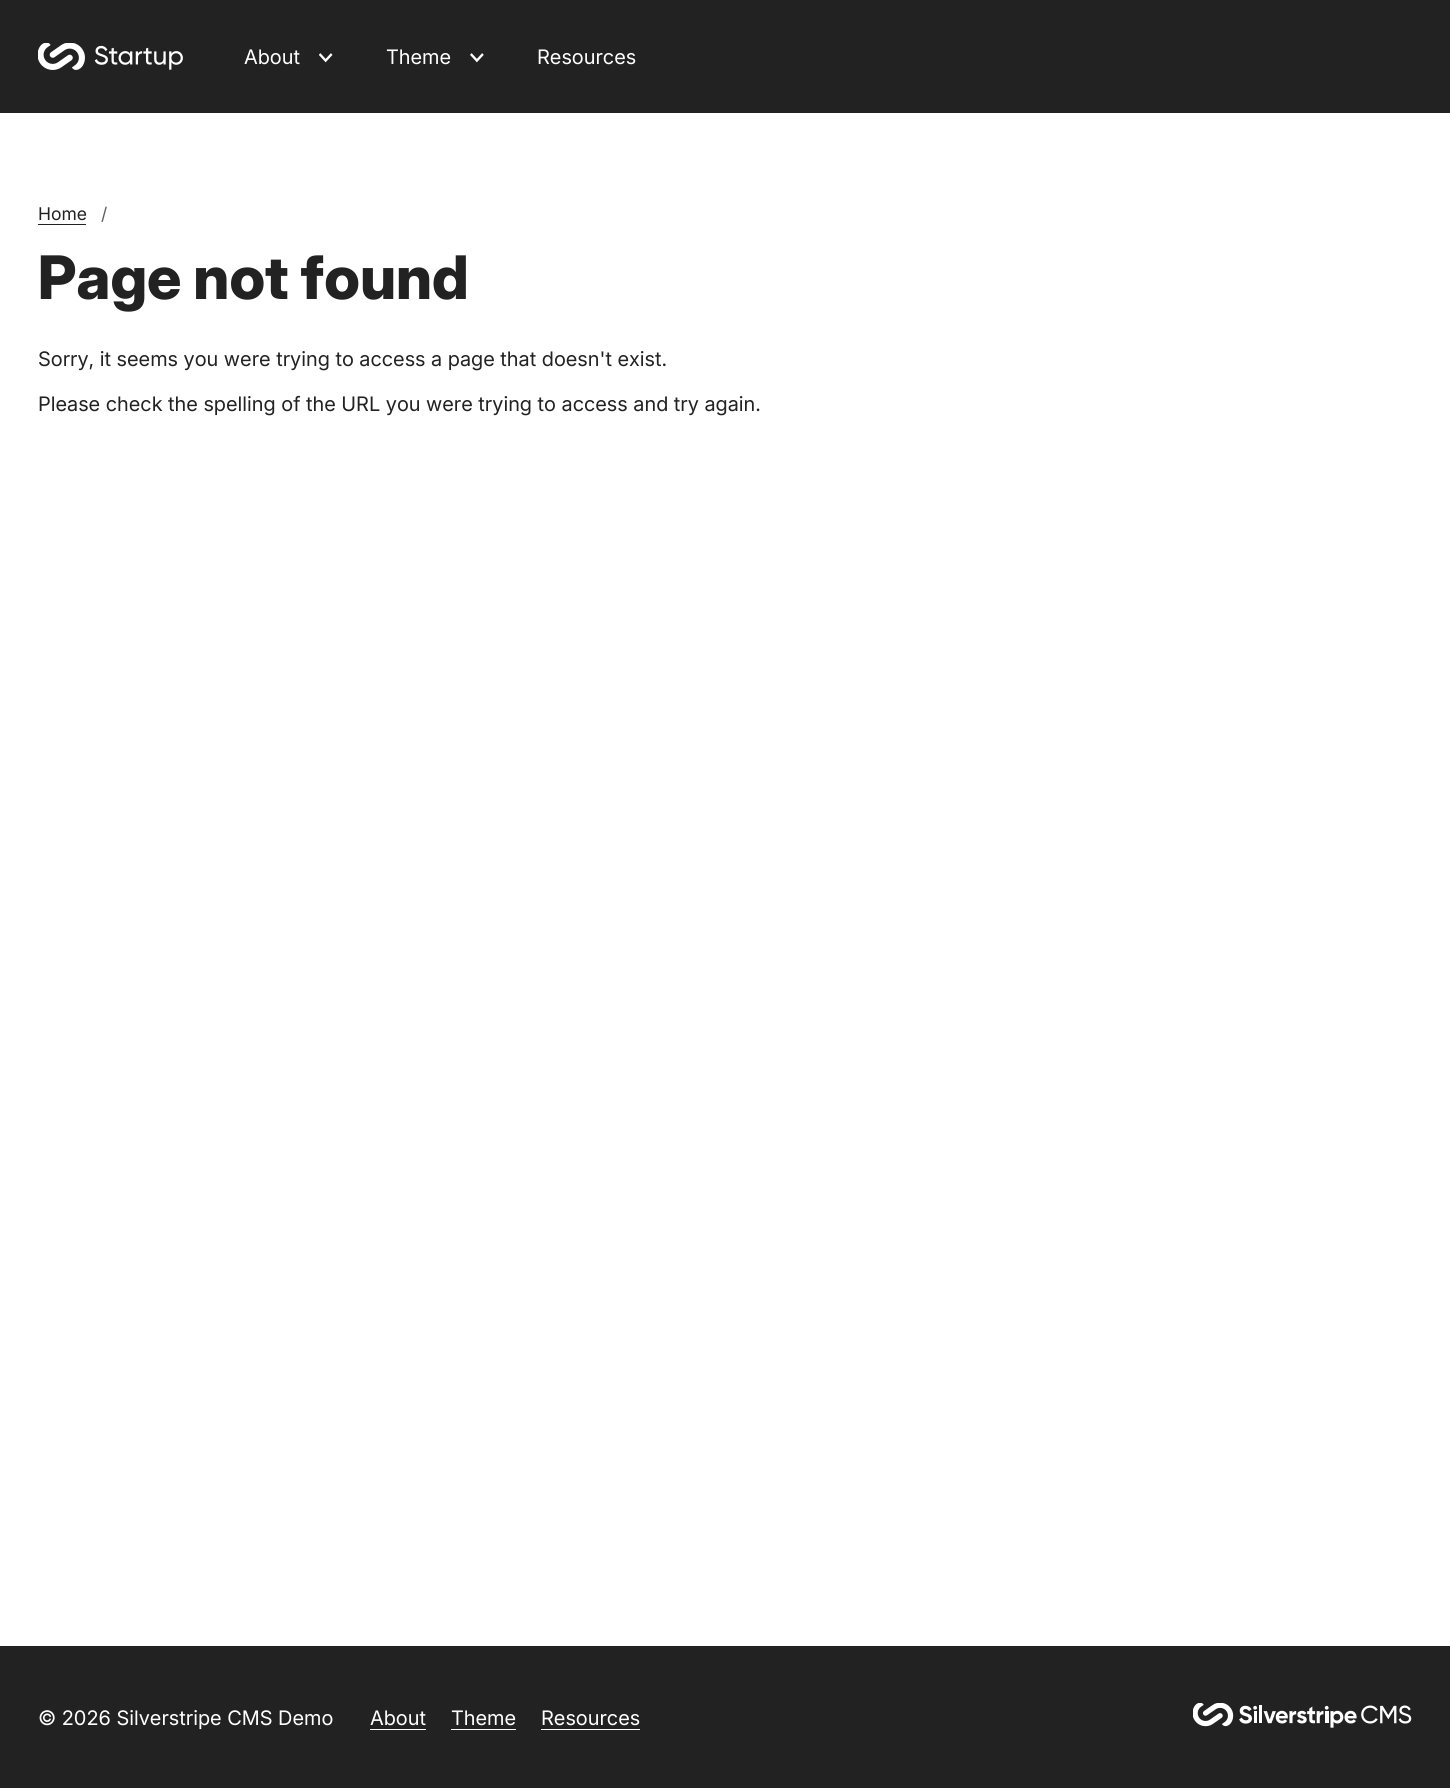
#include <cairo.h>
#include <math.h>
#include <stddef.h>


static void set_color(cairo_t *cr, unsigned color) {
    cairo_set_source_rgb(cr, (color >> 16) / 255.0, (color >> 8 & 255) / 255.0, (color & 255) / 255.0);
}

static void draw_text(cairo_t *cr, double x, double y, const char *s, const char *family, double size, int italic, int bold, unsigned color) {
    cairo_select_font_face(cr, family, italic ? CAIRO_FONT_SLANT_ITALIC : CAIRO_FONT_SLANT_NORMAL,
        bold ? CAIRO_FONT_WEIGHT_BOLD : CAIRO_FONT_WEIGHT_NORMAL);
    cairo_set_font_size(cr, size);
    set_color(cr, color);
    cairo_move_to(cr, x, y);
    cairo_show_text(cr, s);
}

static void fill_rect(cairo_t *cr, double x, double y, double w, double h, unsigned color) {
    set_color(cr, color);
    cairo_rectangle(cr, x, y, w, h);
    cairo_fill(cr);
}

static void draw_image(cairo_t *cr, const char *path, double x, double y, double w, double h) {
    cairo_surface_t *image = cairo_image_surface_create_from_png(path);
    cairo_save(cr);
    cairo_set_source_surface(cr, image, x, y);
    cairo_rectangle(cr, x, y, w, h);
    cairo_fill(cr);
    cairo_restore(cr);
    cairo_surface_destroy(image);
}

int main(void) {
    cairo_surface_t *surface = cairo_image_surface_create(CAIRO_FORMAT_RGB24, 1450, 1788);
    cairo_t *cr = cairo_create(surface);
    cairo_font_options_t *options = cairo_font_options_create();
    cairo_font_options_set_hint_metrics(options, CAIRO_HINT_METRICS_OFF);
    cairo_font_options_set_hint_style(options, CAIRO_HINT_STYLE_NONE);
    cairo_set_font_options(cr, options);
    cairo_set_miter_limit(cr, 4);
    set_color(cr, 0xFFFFFF);
    cairo_paint(cr);
    fill_rect(cr, 0, 0, 1450, 113, 0x222222);
    draw_image(cr, "assets/img1.png", 38, 43, 145, 27);
    draw_text(cr, 244, 64, "About", "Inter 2", 20, 0, 0, 0xFFFFFF);
    draw_image(cr, "assets/img2.png", 319, 53, 14, 10);
    draw_text(cr, 386, 64, "Theme", "Inter 2", 20, 0, 0, 0xFFFFFF);
    draw_image(cr, "assets/img3.png", 470, 53, 14, 10);
    draw_text(cr, 537, 64, "Resources", "Inter 2", 20, 0, 0, 0xFFFFFF);
    draw_text(cr, 38, 220, "Home", "Inter", 17.5, 0, 0, 0x222222);
    fill_rect(cr, 38, 224, 48, 1, 0x222222);
    draw_text(cr, 101, 220, "/", "Inter", 17.5, 0, 0, 0x5F5F5F);
    draw_text(cr, 38, 299, "Page not found", "Inter ExtraBold", 60, 0, 0, 0x222222);
    draw_text(cr, 38, 366, "Sorry, it seems you were trying to access a page that doesn't exist.", "Inter 2", 20, 0, 0, 0x222222);
    draw_text(cr, 38, 411, "Please check the spelling of the URL you were trying to access and try again.", "Inter 2", 20, 0, 0, 0x222222);
    fill_rect(cr, 0, 1646, 1450, 142, 0x222222);
    draw_text(cr, 38, 1725, "© 2026 Silverstripe CMS Demo", "Inter 2", 20, 0, 0, 0xFFFFFF);
    draw_text(cr, 370, 1725, "About", "Inter 2", 20, 0, 0, 0xFFFFFF);
    fill_rect(cr, 370, 1729, 56, 1, 0xFFFFFF);
    draw_text(cr, 451, 1725, "Theme", "Inter 2", 20, 0, 0, 0xFFFFFF);
    fill_rect(cr, 451, 1729, 65, 1, 0xFFFFFF);
    draw_text(cr, 541, 1725, "Resources", "Inter 2", 20, 0, 0, 0xFFFFFF);
    fill_rect(cr, 541, 1729, 99, 1, 0xFFFFFF);
    draw_image(cr, "assets/img4.png", 1193, 1703, 219, 25);
    cairo_surface_write_to_png(surface, "output.png");
    cairo_font_options_destroy(options);
    cairo_destroy(cr);
    cairo_surface_destroy(surface);
    return 0;
}
